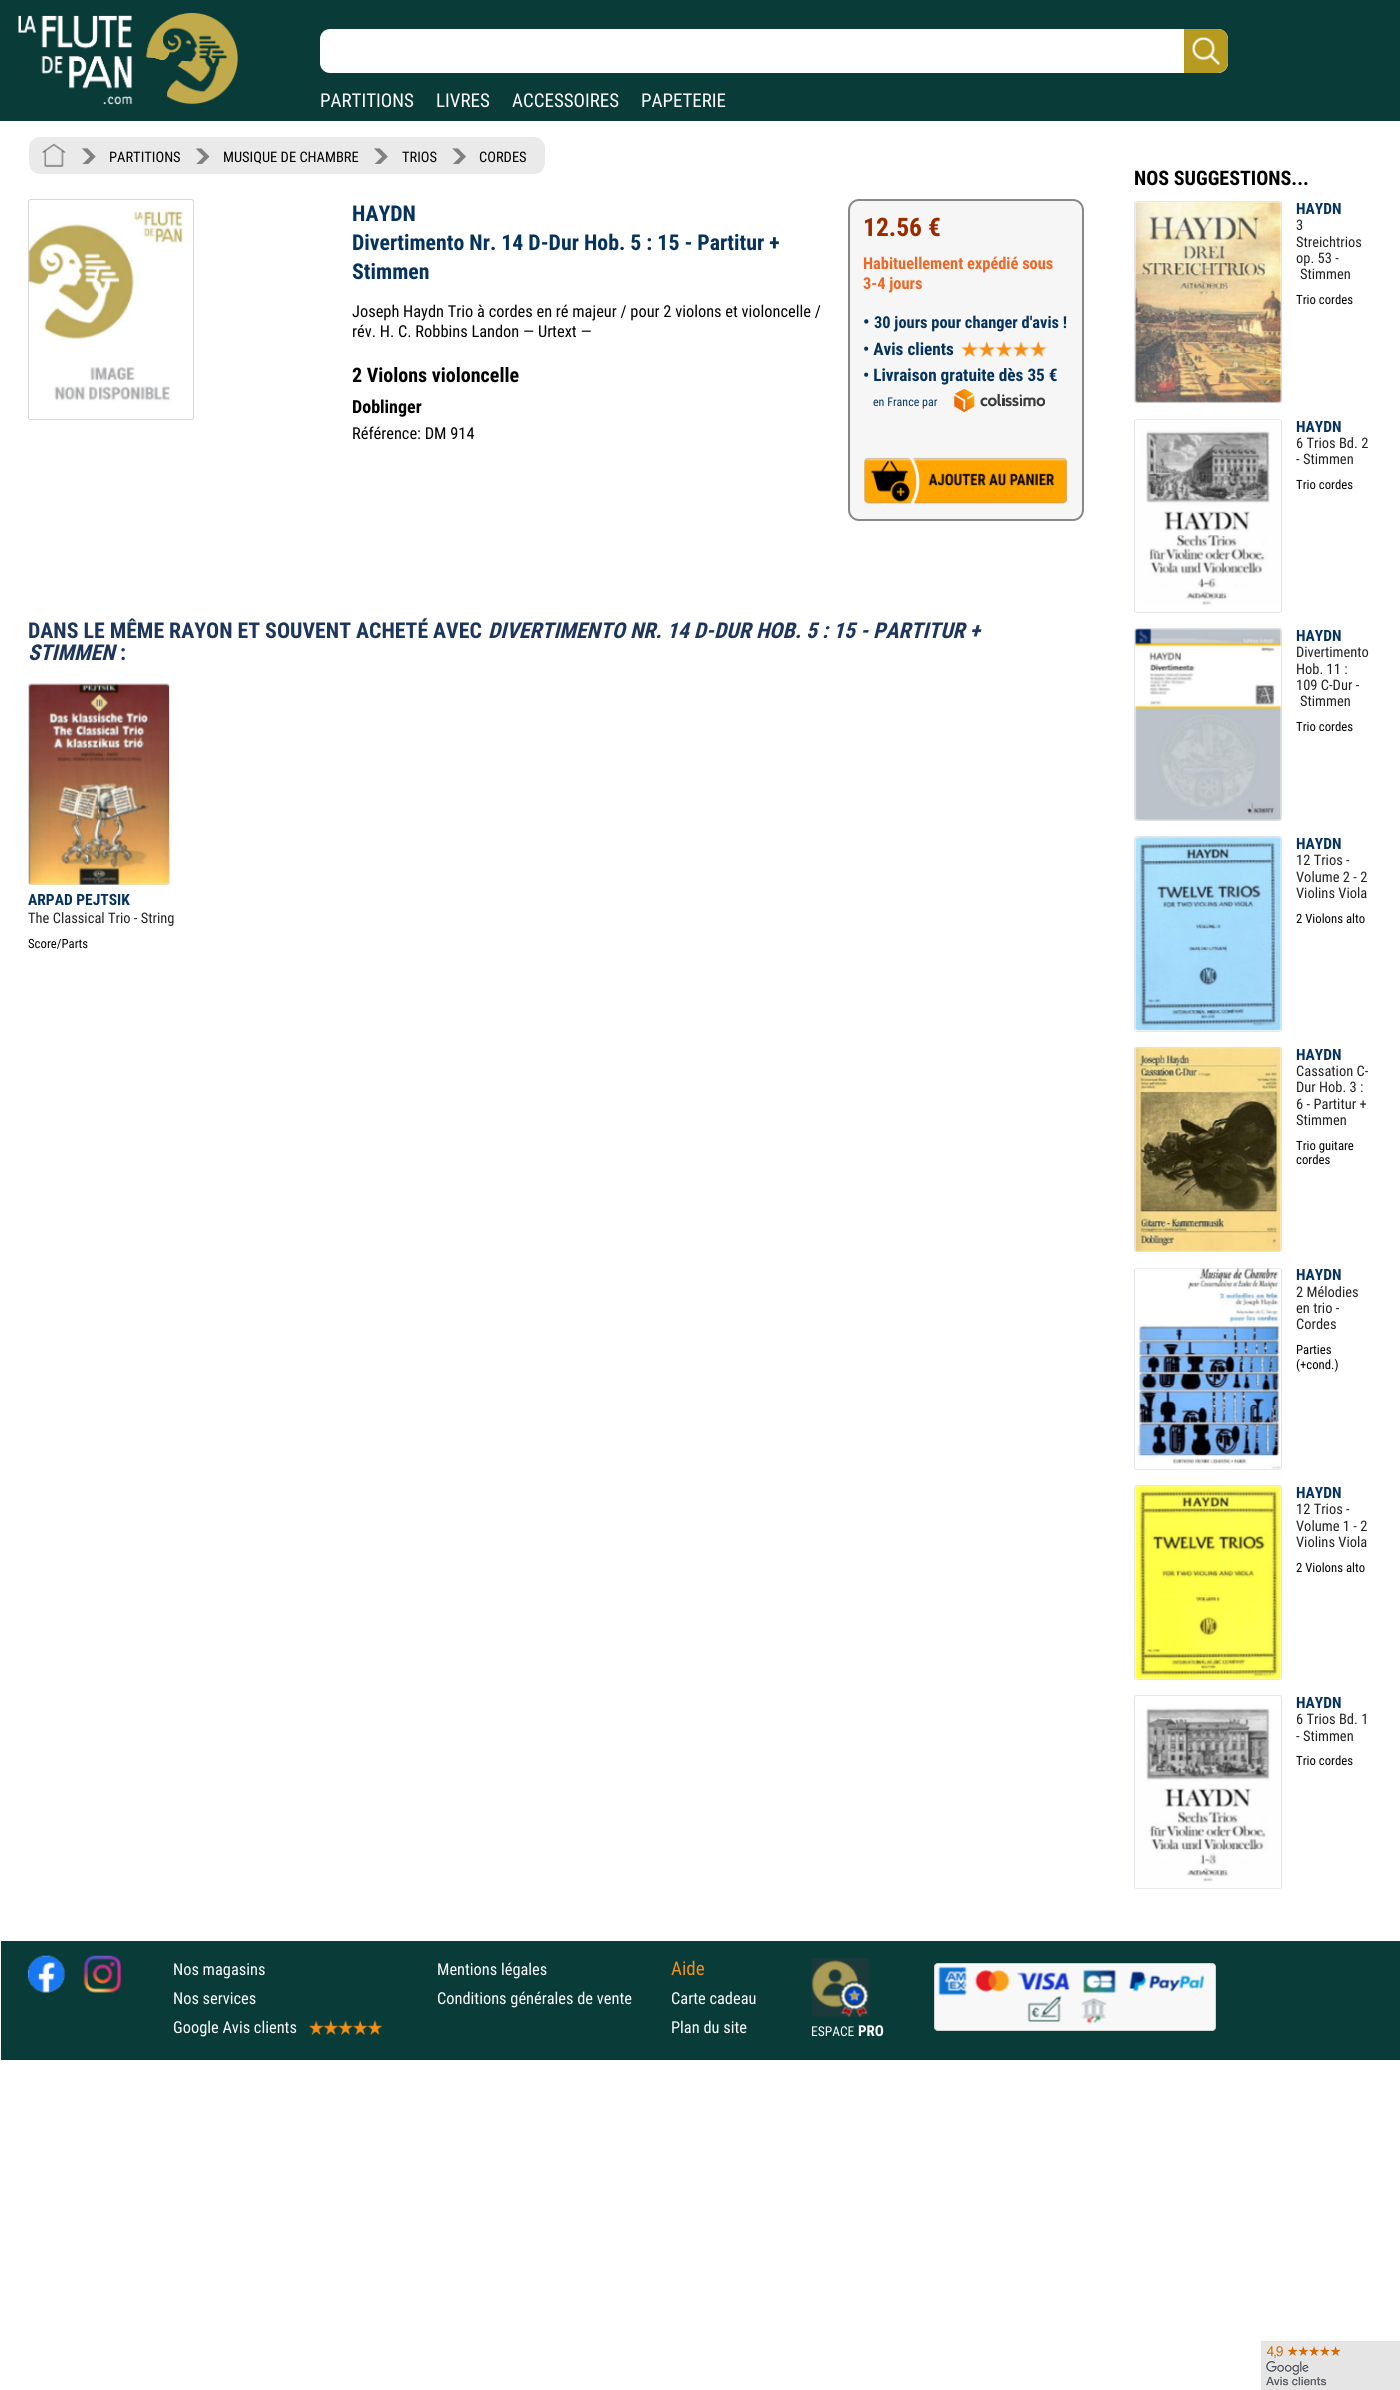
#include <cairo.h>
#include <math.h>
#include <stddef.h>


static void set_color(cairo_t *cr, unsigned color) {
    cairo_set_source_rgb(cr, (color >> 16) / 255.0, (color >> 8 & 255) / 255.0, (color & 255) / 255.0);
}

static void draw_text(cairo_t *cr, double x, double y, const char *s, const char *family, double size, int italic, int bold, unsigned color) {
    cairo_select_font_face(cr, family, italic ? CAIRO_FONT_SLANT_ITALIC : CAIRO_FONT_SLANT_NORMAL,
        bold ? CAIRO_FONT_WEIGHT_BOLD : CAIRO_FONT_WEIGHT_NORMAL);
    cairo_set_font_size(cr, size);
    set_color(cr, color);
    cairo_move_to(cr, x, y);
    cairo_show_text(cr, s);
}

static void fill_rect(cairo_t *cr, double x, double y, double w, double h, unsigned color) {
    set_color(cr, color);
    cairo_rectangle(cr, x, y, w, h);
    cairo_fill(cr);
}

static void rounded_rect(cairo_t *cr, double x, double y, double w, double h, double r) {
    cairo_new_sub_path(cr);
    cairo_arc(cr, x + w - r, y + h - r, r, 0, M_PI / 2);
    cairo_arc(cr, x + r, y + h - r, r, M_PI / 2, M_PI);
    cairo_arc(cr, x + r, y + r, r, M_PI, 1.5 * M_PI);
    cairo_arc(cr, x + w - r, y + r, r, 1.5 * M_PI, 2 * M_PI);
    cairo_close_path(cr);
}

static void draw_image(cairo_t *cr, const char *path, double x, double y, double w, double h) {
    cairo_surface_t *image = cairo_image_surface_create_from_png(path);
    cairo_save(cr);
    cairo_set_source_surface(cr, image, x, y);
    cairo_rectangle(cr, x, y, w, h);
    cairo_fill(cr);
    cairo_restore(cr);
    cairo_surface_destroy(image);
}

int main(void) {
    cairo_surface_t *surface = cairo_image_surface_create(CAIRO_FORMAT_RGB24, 1400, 2390);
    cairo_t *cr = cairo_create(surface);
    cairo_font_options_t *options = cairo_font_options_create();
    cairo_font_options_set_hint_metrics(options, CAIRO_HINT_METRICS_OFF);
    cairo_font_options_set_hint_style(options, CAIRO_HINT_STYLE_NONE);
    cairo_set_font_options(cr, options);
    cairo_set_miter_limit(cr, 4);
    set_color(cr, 0xFFFFFF);
    cairo_paint(cr);
    fill_rect(cr, 0, 0, 1400, 121, 0x093B39);
    draw_image(cr, "assets/img1.png", 18, 13, 220, 92);
    set_color(cr, 0xFFFFFF);
    rounded_rect(cr, 320, 29, 908, 44, 10);
    cairo_fill(cr);
    draw_image(cr, "assets/img2.png", 1184, 29, 44, 44);
    draw_text(cr, 320, 107, "PARTITIONS", "Roboto Condensed", 19, 0, 0, 0xFFFFFF);
    draw_text(cr, 436, 107, "LIVRES", "Roboto Condensed", 19, 0, 0, 0xFFFFFF);
    draw_text(cr, 512, 107, "ACCESSOIRES", "Roboto Condensed", 19, 0, 0, 0xFFFFFF);
    draw_text(cr, 641, 107, "PAPETERIE", "Roboto Condensed", 19, 0, 0, 0xFFFFFF);
    set_color(cr, 0xEAEAEA);
    rounded_rect(cr, 29, 137, 516, 37, 11);
    cairo_fill(cr);
    draw_image(cr, "assets/img3.png", 42, 143, 24, 24);
    draw_image(cr, "assets/img4.png", 82, 148, 14, 16);
    draw_text(cr, 109, 162, "PARTITIONS", "Roboto Condensed", 14.5, 0, 0, 0x000000);
    draw_image(cr, "assets/img5.png", 196, 148, 14, 16);
    draw_text(cr, 223, 162, "MUSIQUE DE CHAMBRE", "Roboto Condensed", 14.5, 0, 0, 0x000000);
    draw_image(cr, "assets/img6.png", 374, 148, 14, 16);
    draw_text(cr, 402, 162, "TRIOS", "Roboto Condensed", 14.5, 0, 0, 0x000000);
    draw_image(cr, "assets/img7.png", 452, 148, 14, 16);
    draw_text(cr, 479, 162, "CORDES", "Roboto Condensed", 14.5, 0, 0, 0x000000);
    rounded_rect(cr, 28.45, 199.45, 165.1, 220.1, 2.55);
    set_color(cr, 0xD1D1D1);
    cairo_set_line_width(cr, 0.9);
    cairo_stroke(cr);
    draw_image(cr, "assets/img8.png", 28, 200, 166, 219);
    draw_text(cr, 352, 221, "HAYDN", "Roboto Condensed", 21.8, 0, 1, 0x06335D);
    draw_text(cr, 352, 250, "Divertimento Nr. 14 D-Dur Hob. 5 : 15 - Partitur +", "Roboto Condensed", 21.8, 0, 1, 0x06335D);
    draw_text(cr, 352, 279, "Stimmen", "Roboto Condensed", 21.8, 0, 1, 0x06335D);
    draw_text(cr, 352, 317, "Joseph Haydn Trio à cordes en ré majeur / pour 2 violons et violoncelle /", "Roboto Condensed", 16.4, 0, 0, 0x000000);
    draw_text(cr, 352, 337, "rév. H. C. Robbins Landon — Urtext —", "Roboto Condensed", 16.4, 0, 0, 0x000000);
    draw_text(cr, 352, 382, "2 Violons violoncelle", "Roboto Condensed", 20, 0, 1, 0x000000);
    draw_text(cr, 352, 413, "Doblinger", "Roboto Condensed", 18, 0, 1, 0x000000);
    draw_text(cr, 352, 439, "Référence: DM 914", "Roboto Condensed", 16.4, 0, 0, 0x000000);
    set_color(cr, 0xF6F6F6);
    rounded_rect(cr, 849, 200, 234, 320, 10);
    cairo_fill_preserve(cr);
    set_color(cr, 0x888888);
    cairo_set_line_width(cr, 2);
    cairo_stroke(cr);
    draw_text(cr, 863, 236, "12.56 €", "Roboto Condensed", 25.5, 0, 1, 0x9A2A00);
    draw_text(cr, 863, 269, "Habituellement expédié sous", "Roboto Condensed", 16.4, 0, 1, 0xED6826);
    draw_text(cr, 863, 289, "3-4 jours", "Roboto Condensed", 16.4, 0, 1, 0xED6826);
    draw_text(cr, 863, 328, "•", "Roboto Condensed", 18, 0, 1, 0x06335D);
    draw_text(cr, 874, 328, "30 jours pour changer d'avis !", "Roboto Condensed", 16.4, 0, 1, 0x06335D);
    draw_text(cr, 863, 355, "• Avis clients", "Roboto Condensed", 17.25, 0, 1, 0x06335D);
    draw_image(cr, "assets/img9.png", 961, 341, 86, 16);
    draw_text(cr, 863, 381, "• Livraison gratuite dès 35 €", "Roboto Condensed", 17.25, 0, 1, 0x06335D);
    draw_text(cr, 873, 406, "en France par", "Roboto Condensed", 12, 0, 0, 0x06335D);
    draw_image(cr, "assets/img10.png", 954, 389, 91, 23);
    draw_image(cr, "assets/img11.png", 864, 457, 204, 47);
    draw_text(cr, 28, 638, "DANS LE MÊME RAYON ET SOUVENT ACHETÉ AVEC", "Roboto Condensed", 21.8, 0, 1, 0x1F365C);
    draw_text(cr, 488, 638, "DIVERTIMENTO NR. 14 D-DUR HOB. 5 : 15 - PARTITUR +", "Roboto Condensed", 21.8, 1, 1, 0x1F365C);
    draw_text(cr, 28, 660, "STIMMEN", "Roboto Condensed", 21.8, 1, 1, 0x1F365C);
    draw_text(cr, 120, 660, ":", "Roboto Condensed", 21.8, 0, 1, 0x1F365C);
    rounded_rect(cr, 28.45, 683.45, 141.1, 201.1, 2.55);
    set_color(cr, 0xE1E1E8);
    cairo_set_line_width(cr, 0.9);
    cairo_stroke(cr);
    draw_image(cr, "assets/img12.png", 28, 684, 141, 201);
    draw_text(cr, 28, 905, "ARPAD PEJTSIK", "Roboto Condensed", 15.5, 0, 1, 0x06335D);
    draw_text(cr, 28, 923, "The Classical Trio - String", "Roboto Condensed", 14.5, 0, 0, 0x222222);
    draw_text(cr, 28, 948, "Score/Parts", "Roboto Condensed", 12.75, 0, 0, 0x000000);
    draw_text(cr, 1134, 185, "NOS SUGGESTIONS...", "Roboto Condensed", 20, 0, 1, 0x000000);
    rounded_rect(cr, 1134.45, 201.45, 147.1, 201.1, 2.55);
    set_color(cr, 0xE1E1E8);
    cairo_stroke(cr);
    draw_image(cr, "assets/img13.png", 1135, 202, 147, 201);
    draw_text(cr, 1296, 214, "HAYDN", "Roboto Condensed", 15.5, 0, 1, 0x06335D);
    draw_text(cr, 1296, 230, "3", "Roboto Condensed", 14.5, 0, 0, 0x222222);
    draw_text(cr, 1296, 247, "Streichtrios", "Roboto Condensed", 14.5, 0, 0, 0x222222);
    draw_text(cr, 1296, 263, "op. 53 -", "Roboto Condensed", 14.5, 0, 0, 0x222222);
    draw_text(cr, 1300, 279, "Stimmen", "Roboto Condensed", 14.5, 0, 0, 0x222222);
    draw_text(cr, 1296, 304, "Trio cordes", "Roboto Condensed", 12.75, 0, 0, 0x000000);
    rounded_rect(cr, 1134.45, 419.45, 147.1, 193.1, 2.55);
    set_color(cr, 0xE1E1E8);
    cairo_stroke(cr);
    draw_image(cr, "assets/img14.png", 1137, 419, 144, 187);
    draw_text(cr, 1296, 432, "HAYDN", "Roboto Condensed", 15.5, 0, 1, 0x06335D);
    draw_text(cr, 1296, 448, "6 Trios Bd. 2", "Roboto Condensed", 14.5, 0, 0, 0x222222);
    draw_text(cr, 1296, 464, "- Stimmen", "Roboto Condensed", 14.5, 0, 0, 0x222222);
    draw_text(cr, 1296, 489, "Trio cordes", "Roboto Condensed", 12.75, 0, 0, 0x000000);
    rounded_rect(cr, 1134.45, 628.45, 147.1, 192.1, 2.55);
    set_color(cr, 0xE1E1E8);
    cairo_stroke(cr);
    draw_image(cr, "assets/img15.png", 1135, 628, 147, 193);
    draw_text(cr, 1296, 641, "HAYDN", "Roboto Condensed", 15.5, 0, 1, 0x06335D);
    draw_text(cr, 1296, 657, "Divertimento", "Roboto Condensed", 14.5, 0, 0, 0x222222);
    draw_text(cr, 1296, 674, "Hob. 11 :", "Roboto Condensed", 14.5, 0, 0, 0x222222);
    draw_text(cr, 1296, 690, "109 C-Dur -", "Roboto Condensed", 14.5, 0, 0, 0x222222);
    draw_text(cr, 1300, 706, "Stimmen", "Roboto Condensed", 14.5, 0, 0, 0x222222);
    draw_text(cr, 1296, 731, "Trio cordes", "Roboto Condensed", 12.75, 0, 0, 0x000000);
    rounded_rect(cr, 1134.45, 836.45, 147.1, 195.1, 2.55);
    set_color(cr, 0xE1E1E8);
    cairo_stroke(cr);
    draw_image(cr, "assets/img16.png", 1135, 836, 147, 195);
    draw_text(cr, 1296, 849, "HAYDN", "Roboto Condensed", 15.5, 0, 1, 0x06335D);
    draw_text(cr, 1296, 865, "12 Trios -", "Roboto Condensed", 14.5, 0, 0, 0x222222);
    draw_text(cr, 1296, 882, "Volume 2 - 2", "Roboto Condensed", 14.5, 0, 0, 0x222222);
    draw_text(cr, 1296, 898, "Violins Viola", "Roboto Condensed", 14.5, 0, 0, 0x222222);
    draw_text(cr, 1296, 923, "2 Violons alto", "Roboto Condensed", 12.75, 0, 0, 0x000000);
    rounded_rect(cr, 1134.45, 1047.45, 147.1, 204.1, 2.55);
    set_color(cr, 0xE1E1E8);
    cairo_stroke(cr);
    draw_image(cr, "assets/img17.png", 1135, 1046, 147, 206);
    draw_text(cr, 1296, 1060, "HAYDN", "Roboto Condensed", 15.5, 0, 1, 0x06335D);
    draw_text(cr, 1296, 1076, "Cassation C-", "Roboto Condensed", 14.5, 0, 0, 0x222222);
    draw_text(cr, 1296, 1092, "Dur Hob. 3 :", "Roboto Condensed", 14.5, 0, 0, 0x222222);
    draw_text(cr, 1296, 1109, "6 - Partitur +", "Roboto Condensed", 14.5, 0, 0, 0x222222);
    draw_text(cr, 1296, 1125, "Stimmen", "Roboto Condensed", 14.5, 0, 0, 0x222222);
    draw_text(cr, 1296, 1150, "Trio guitare", "Roboto Condensed", 12.75, 0, 0, 0x000000);
    draw_text(cr, 1296, 1164, "cordes", "Roboto Condensed", 12.75, 0, 0, 0x000000);
    rounded_rect(cr, 1134.45, 1268.45, 147.1, 201.1, 2.55);
    set_color(cr, 0xE1E1E8);
    cairo_stroke(cr);
    draw_image(cr, "assets/img18.png", 1135, 1267, 146, 202);
    draw_text(cr, 1296, 1280, "HAYDN", "Roboto Condensed", 15.5, 0, 1, 0x06335D);
    draw_text(cr, 1296, 1297, "2 Mélodies", "Roboto Condensed", 14.5, 0, 0, 0x222222);
    draw_text(cr, 1296, 1313, "en trio -", "Roboto Condensed", 14.5, 0, 0, 0x222222);
    draw_text(cr, 1296, 1329, "Cordes", "Roboto Condensed", 14.5, 0, 0, 0x222222);
    draw_text(cr, 1296, 1354, "Parties", "Roboto Condensed", 12.75, 0, 0, 0x000000);
    draw_text(cr, 1296, 1369, "(+cond.)", "Roboto Condensed", 12.75, 0, 0, 0x000000);
    rounded_rect(cr, 1134.45, 1485.45, 147.1, 194.1, 2.55);
    set_color(cr, 0xE1E1E8);
    cairo_stroke(cr);
    draw_image(cr, "assets/img19.png", 1135, 1486, 147, 194);
    draw_text(cr, 1296, 1498, "HAYDN", "Roboto Condensed", 15.5, 0, 1, 0x06335D);
    draw_text(cr, 1296, 1514, "12 Trios -", "Roboto Condensed", 14.5, 0, 0, 0x222222);
    draw_text(cr, 1296, 1531, "Volume 1 - 2", "Roboto Condensed", 14.5, 0, 0, 0x222222);
    draw_text(cr, 1296, 1547, "Violins Viola", "Roboto Condensed", 14.5, 0, 0, 0x222222);
    draw_text(cr, 1296, 1572, "2 Violons alto", "Roboto Condensed", 12.75, 0, 0, 0x000000);
    rounded_rect(cr, 1134.45, 1695.45, 147.1, 193.1, 2.55);
    set_color(cr, 0xE1E1E8);
    cairo_stroke(cr);
    draw_image(cr, "assets/img20.png", 1135, 1708, 146, 181);
    draw_text(cr, 1296, 1708, "HAYDN", "Roboto Condensed", 15.5, 0, 1, 0x06335D);
    draw_text(cr, 1296, 1724, "6 Trios Bd. 1", "Roboto Condensed", 14.5, 0, 0, 0x222222);
    draw_text(cr, 1296, 1741, "- Stimmen", "Roboto Condensed", 14.5, 0, 0, 0x222222);
    draw_text(cr, 1296, 1765, "Trio cordes", "Roboto Condensed", 12.75, 0, 0, 0x000000);
    fill_rect(cr, 1, 1941, 1399, 119, 0x093B39);
    draw_image(cr, "assets/img21.png", 27, 1955, 39, 38);
    draw_image(cr, "assets/img22.png", 83, 1955, 38, 38);
    draw_text(cr, 173, 1975, "Nos magasins", "Roboto Condensed", 16.4, 0, 0, 0xFFFFFF);
    draw_text(cr, 173, 2004, "Nos services", "Roboto Condensed", 16.4, 0, 0, 0xFFFFFF);
    draw_text(cr, 173, 2033, "Google Avis clients", "Roboto Condensed", 16.4, 0, 0, 0xFFFFFF);
    draw_image(cr, "assets/img23.png", 309, 2020, 74, 16);
    draw_text(cr, 437, 1975, "Mentions légales", "Roboto Condensed", 16.4, 0, 0, 0xFFFFFF);
    draw_text(cr, 437, 2004, "Conditions générales de vente", "Roboto Condensed", 16.4, 0, 0, 0xFFFFFF);
    draw_text(cr, 671, 1975, "Aide", "Roboto Condensed", 19, 0, 0, 0xF18F1A);
    draw_text(cr, 671, 2004, "Carte cadeau", "Roboto Condensed", 16.4, 0, 0, 0xFFFFFF);
    draw_text(cr, 671, 2033, "Plan du site", "Roboto Condensed", 16.4, 0, 0, 0xFFFFFF);
    draw_image(cr, "assets/img24.png", 811, 1958, 59, 60);
    draw_text(cr, 811, 2036, "ESPACE", "Roboto Condensed", 13.5, 0, 0, 0xFFFFFF);
    draw_text(cr, 858, 2036, "PRO", "Roboto Condensed", 15, 0, 1, 0xFFFFFF);
    set_color(cr, 0xF8F8F8);
    rounded_rect(cr, 934.45, 1963.45, 281.1, 67.1, 3.55);
    cairo_fill_preserve(cr);
    set_color(cr, 0xDADADA);
    cairo_stroke(cr);
    draw_image(cr, "assets/img25.png", 938, 1966, 267, 58);
    draw_image(cr, "assets/img26.png", 1261, 2341, 139, 49);
    cairo_surface_write_to_png(surface, "output.png");
    cairo_font_options_destroy(options);
    cairo_destroy(cr);
    cairo_surface_destroy(surface);
    return 0;
}
